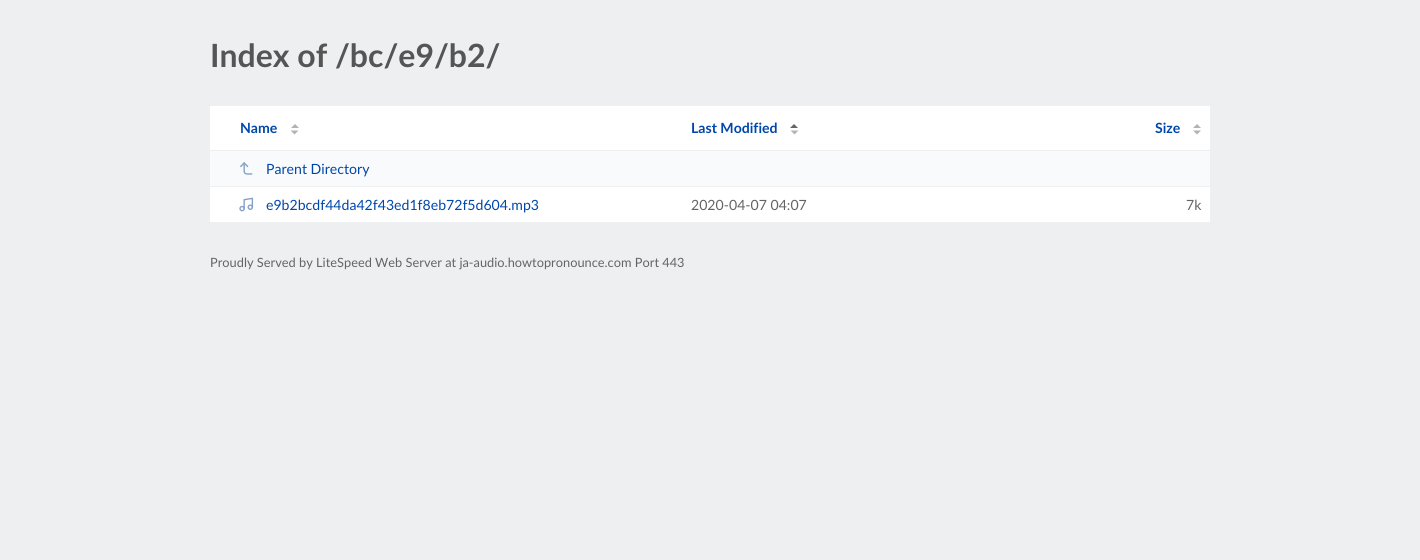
#include <cairo.h>
#include <math.h>
#include <stddef.h>


static void set_color(cairo_t *cr, unsigned color) {
    cairo_set_source_rgb(cr, (color >> 16) / 255.0, (color >> 8 & 255) / 255.0, (color & 255) / 255.0);
}

static void draw_text(cairo_t *cr, double x, double y, const char *s, const char *family, double size, int italic, int bold, unsigned color) {
    cairo_select_font_face(cr, family, italic ? CAIRO_FONT_SLANT_ITALIC : CAIRO_FONT_SLANT_NORMAL,
        bold ? CAIRO_FONT_WEIGHT_BOLD : CAIRO_FONT_WEIGHT_NORMAL);
    cairo_set_font_size(cr, size);
    set_color(cr, color);
    cairo_move_to(cr, x, y);
    cairo_show_text(cr, s);
}

static void fill_rect(cairo_t *cr, double x, double y, double w, double h, unsigned color) {
    set_color(cr, color);
    cairo_rectangle(cr, x, y, w, h);
    cairo_fill(cr);
}

static void draw_image(cairo_t *cr, const char *path, double x, double y, double w, double h) {
    cairo_surface_t *image = cairo_image_surface_create_from_png(path);
    cairo_save(cr);
    cairo_set_source_surface(cr, image, x, y);
    cairo_rectangle(cr, x, y, w, h);
    cairo_fill(cr);
    cairo_restore(cr);
    cairo_surface_destroy(image);
}

int main(void) {
    cairo_surface_t *surface = cairo_image_surface_create(CAIRO_FORMAT_RGB24, 1420, 560);
    cairo_t *cr = cairo_create(surface);
    cairo_font_options_t *options = cairo_font_options_create();
    cairo_font_options_set_hint_metrics(options, CAIRO_HINT_METRICS_OFF);
    cairo_font_options_set_hint_style(options, CAIRO_HINT_STYLE_NONE);
    cairo_set_font_options(cr, options);
    cairo_set_miter_limit(cr, 4);
    set_color(cr, 0xEDEFF0);
    cairo_paint(cr);
    draw_text(cr, 210, 67, "Index of /bc/e9/b2/", "Lato", 32, 0, 1, 0x555555);
    fill_rect(cr, 210, 106, 1000, 116, 0xFFFFFF);
    draw_text(cr, 240, 133, "Name", "Lato", 14.1, 0, 1, 0x0047AB);
    set_color(cr, 0xB3B3B3);
    cairo_new_path(cr);
    cairo_move_to(cr, 299, 128);
    cairo_line_to(cr, 291, 128);
    cairo_line_to(cr, 295, 124);
    cairo_close_path(cr);
    cairo_move_to(cr, 290.5, 130.5);
    cairo_line_to(cr, 298.5, 130.5);
    cairo_line_to(cr, 294.5, 134.5);
    cairo_close_path(cr);
    cairo_fill(cr);
    draw_text(cr, 691, 133, "Last Modified", "Lato", 14.1, 0, 1, 0x0047AB);
    set_color(cr, 0x666666);
    cairo_new_path(cr);
    cairo_move_to(cr, 798, 128);
    cairo_line_to(cr, 790, 128);
    cairo_line_to(cr, 794, 124);
    cairo_close_path(cr);
    cairo_fill(cr);
    set_color(cr, 0xB3B3B3);
    cairo_new_path(cr);
    cairo_move_to(cr, 790.5, 130.5);
    cairo_line_to(cr, 798.5, 130.5);
    cairo_line_to(cr, 794.5, 134.5);
    cairo_close_path(cr);
    cairo_fill(cr);
    draw_text(cr, 1155, 133, "Size", "Lato", 14.1, 0, 1, 0x0047AB);
    set_color(cr, 0xB3B3B3);
    cairo_new_path(cr);
    cairo_move_to(cr, 1201, 128);
    cairo_line_to(cr, 1193, 128);
    cairo_line_to(cr, 1197, 124);
    cairo_close_path(cr);
    cairo_move_to(cr, 1193, 130.5);
    cairo_line_to(cr, 1201, 130.5);
    cairo_line_to(cr, 1197, 134.5);
    cairo_close_path(cr);
    cairo_fill(cr);
    fill_rect(cr, 210, 151, 1000, 35, 0xF8FAFB);
    fill_rect(cr, 210, 150, 1000, 1, 0xEDEFF0);
    fill_rect(cr, 210, 186, 1000, 1, 0xEDEFF0);
    draw_image(cr, "assets/img1.png", 240, 162, 13, 13);
    draw_text(cr, 266, 174, "Parent Directory", "Lato", 14.1, 0, 0, 0x0047AB);
    draw_image(cr, "assets/img2.png", 239, 197, 15, 15);
    draw_text(cr, 266, 210, "e9b2bcdf44da42f43ed1f8eb72f5d604.mp3", "Lato", 14.1, 0, 0, 0x0047AB);
    draw_text(cr, 691, 210, "2020-04-07 04:07", "Lato", 14.1, 0, 0, 0x646464);
    draw_text(cr, 1186, 210, "7k", "Lato", 14.1, 0, 0, 0x646464);
    draw_text(cr, 210, 267, "Proudly Served by LiteSpeed Web Server at ja-audio.howtopronounce.com Port 443", "Lato", 12.8, 0, 0, 0x646464);
    cairo_surface_write_to_png(surface, "output.png");
    cairo_font_options_destroy(options);
    cairo_destroy(cr);
    cairo_surface_destroy(surface);
    return 0;
}
